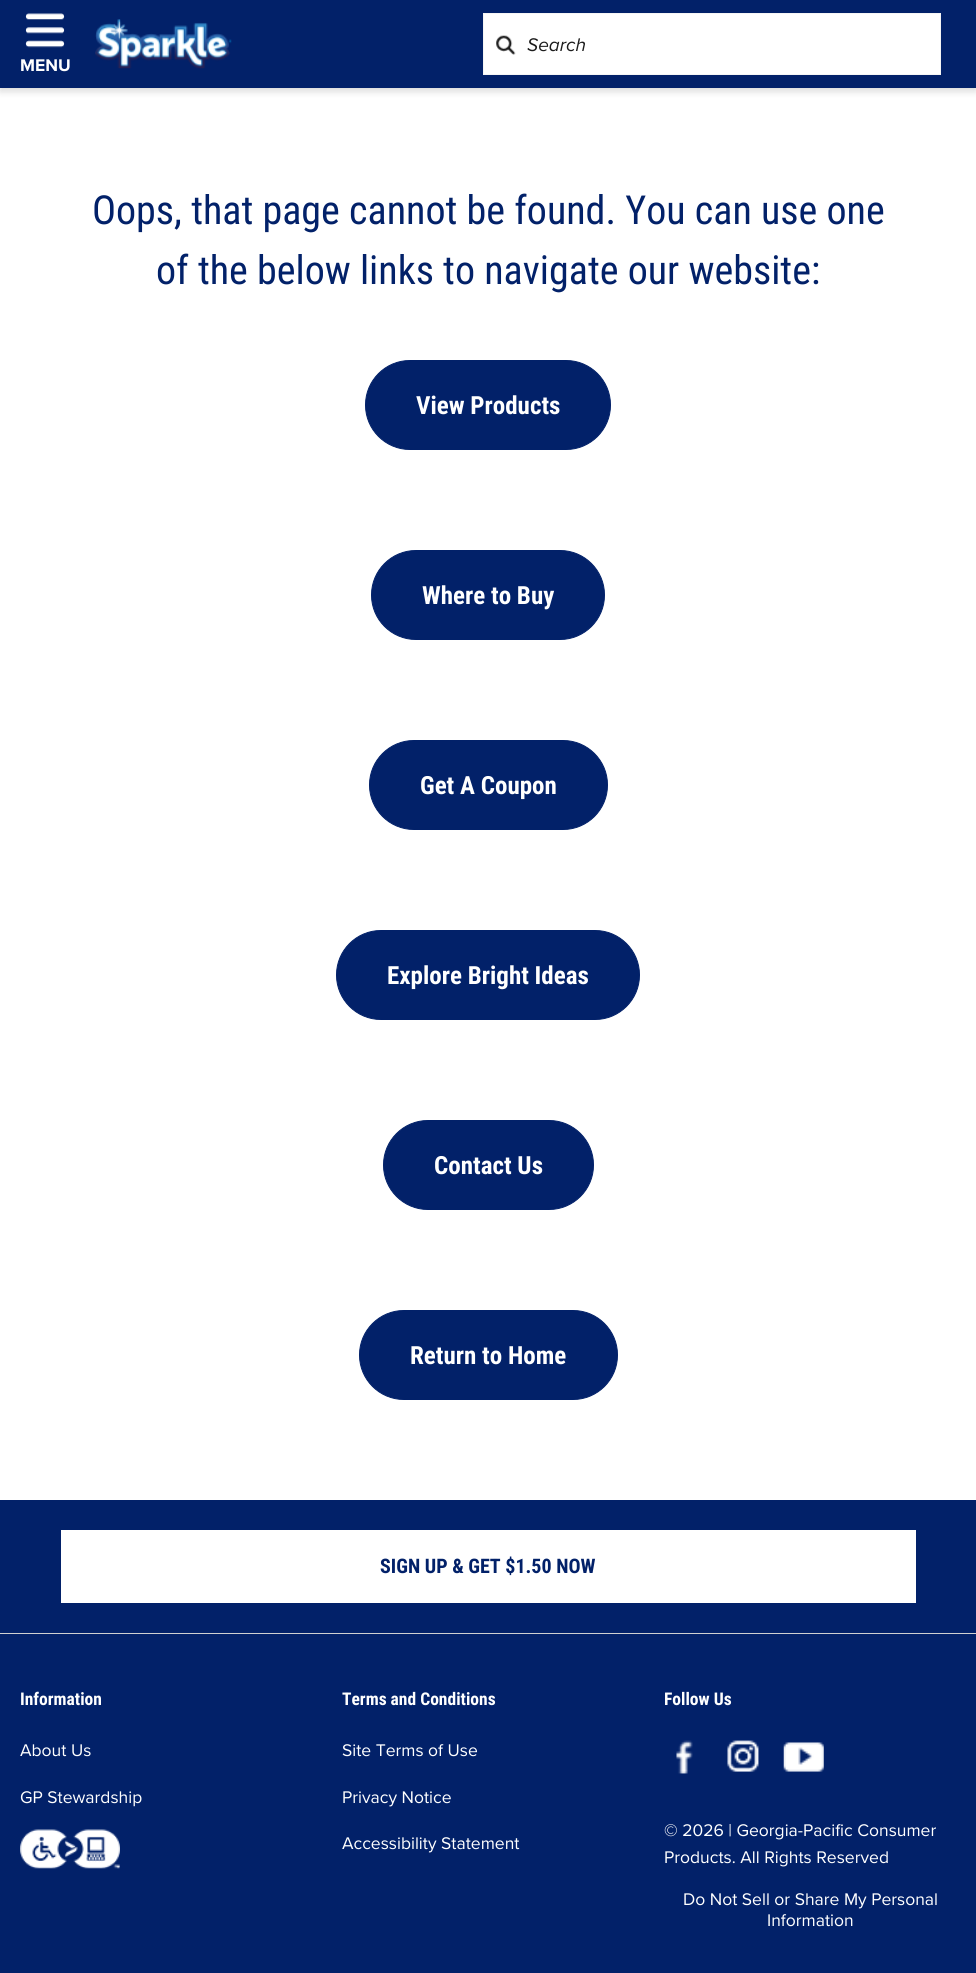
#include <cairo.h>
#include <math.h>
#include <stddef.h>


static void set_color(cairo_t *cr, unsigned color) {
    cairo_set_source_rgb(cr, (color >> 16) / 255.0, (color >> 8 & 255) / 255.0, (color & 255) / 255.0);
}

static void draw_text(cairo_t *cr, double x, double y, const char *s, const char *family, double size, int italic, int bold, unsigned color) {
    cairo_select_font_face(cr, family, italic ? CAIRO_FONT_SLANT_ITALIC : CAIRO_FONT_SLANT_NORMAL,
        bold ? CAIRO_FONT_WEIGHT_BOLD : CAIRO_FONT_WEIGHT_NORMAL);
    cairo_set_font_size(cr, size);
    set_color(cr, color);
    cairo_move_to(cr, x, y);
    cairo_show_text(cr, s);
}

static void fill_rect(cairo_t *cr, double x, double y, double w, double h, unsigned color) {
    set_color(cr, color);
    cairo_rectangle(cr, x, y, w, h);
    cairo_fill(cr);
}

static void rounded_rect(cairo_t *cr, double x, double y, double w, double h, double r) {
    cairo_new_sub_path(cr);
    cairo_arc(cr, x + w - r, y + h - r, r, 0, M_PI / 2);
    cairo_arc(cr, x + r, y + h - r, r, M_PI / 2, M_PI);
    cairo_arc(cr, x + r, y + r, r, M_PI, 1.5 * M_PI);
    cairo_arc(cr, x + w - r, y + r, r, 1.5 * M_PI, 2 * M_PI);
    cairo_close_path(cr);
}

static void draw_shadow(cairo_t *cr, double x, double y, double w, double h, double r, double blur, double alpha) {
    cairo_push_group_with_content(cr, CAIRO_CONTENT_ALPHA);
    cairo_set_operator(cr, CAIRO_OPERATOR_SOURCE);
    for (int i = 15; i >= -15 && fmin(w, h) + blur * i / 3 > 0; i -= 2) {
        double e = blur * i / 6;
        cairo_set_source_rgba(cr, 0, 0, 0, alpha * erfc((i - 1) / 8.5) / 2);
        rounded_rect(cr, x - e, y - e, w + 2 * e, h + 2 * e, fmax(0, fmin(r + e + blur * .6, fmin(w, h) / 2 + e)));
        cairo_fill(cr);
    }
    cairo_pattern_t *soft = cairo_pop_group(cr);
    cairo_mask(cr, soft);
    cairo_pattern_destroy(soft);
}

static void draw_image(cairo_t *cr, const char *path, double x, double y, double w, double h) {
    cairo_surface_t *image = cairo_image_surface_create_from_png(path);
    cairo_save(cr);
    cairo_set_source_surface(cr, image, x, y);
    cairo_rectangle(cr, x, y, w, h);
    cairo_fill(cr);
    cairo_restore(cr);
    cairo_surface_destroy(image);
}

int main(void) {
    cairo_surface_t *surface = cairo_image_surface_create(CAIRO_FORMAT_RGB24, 976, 1973);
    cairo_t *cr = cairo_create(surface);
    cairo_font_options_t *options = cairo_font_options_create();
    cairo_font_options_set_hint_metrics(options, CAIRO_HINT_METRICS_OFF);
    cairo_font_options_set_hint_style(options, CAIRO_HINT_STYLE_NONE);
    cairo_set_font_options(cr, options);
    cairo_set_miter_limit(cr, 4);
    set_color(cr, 0xFFFFFF);
    cairo_paint(cr);
    set_color(cr, 0x000000);
    draw_shadow(cr, 0, 4, 976, 87, 0, 4, 0.16);
    fill_rect(cr, 0, 0, 976, 88, 0x022169);
    set_color(cr, 0xFFFFFF);
    cairo_rectangle(cr, 483.5, 13.5, 457, 61);
    cairo_fill_preserve(cr);
    set_color(cr, 0xF5F5F5);
    cairo_set_line_width(cr, 1);
    cairo_stroke(cr);
    draw_image(cr, "assets/img1.png", 496, 35, 20, 20);
    draw_text(cr, 527, 51, "Search", "Proxima Nova", 19, 1, 0, 0x1C1C1C);
    draw_image(cr, "assets/img2.png", 25, 13, 40, 35);
    draw_text(cr, 20, 71, "MENU", "Proxima Nova", 17.5, 0, 1, 0xFFFFFF);
    draw_image(cr, "assets/img3.png", 95, 19, 137, 50);
    draw_text(cr, 92, 224, "Oops, that page cannot be found. You can use one", "Roboto Condensed", 40, 0, 0, 0x022169);
    draw_text(cr, 156, 284, "of the below links to navigate our website:", "Roboto Condensed", 40, 0, 0, 0x022169);
    rounded_rect(cr, 365.5, 360.5, 245, 89, 44.5);
    cairo_fill_preserve(cr);
    cairo_stroke(cr);
    draw_text(cr, 416, 414, "View Products", "Roboto Condensed", 25, 0, 1, 0xFFFFFF);
    set_color(cr, 0x022169);
    rounded_rect(cr, 371.5, 550.5, 233, 89, 44.5);
    cairo_fill_preserve(cr);
    cairo_stroke(cr);
    draw_text(cr, 422, 604, "Where to Buy", "Roboto Condensed", 25, 0, 1, 0xFFFFFF);
    set_color(cr, 0x022169);
    rounded_rect(cr, 369.5, 740.5, 238, 89, 44.5);
    cairo_fill_preserve(cr);
    cairo_stroke(cr);
    draw_text(cr, 420, 794, "Get A Coupon", "Roboto Condensed", 25, 0, 1, 0xFFFFFF);
    set_color(cr, 0x022169);
    rounded_rect(cr, 336.5, 930.5, 303, 89, 44.5);
    cairo_fill_preserve(cr);
    cairo_stroke(cr);
    draw_text(cr, 387, 984, "Explore Bright Ideas", "Roboto Condensed", 25, 0, 1, 0xFFFFFF);
    set_color(cr, 0x022169);
    rounded_rect(cr, 383.5, 1120.5, 210, 89, 44.5);
    cairo_fill_preserve(cr);
    cairo_stroke(cr);
    draw_text(cr, 434, 1174, "Contact Us", "Roboto Condensed", 25, 0, 1, 0xFFFFFF);
    set_color(cr, 0x022169);
    rounded_rect(cr, 359.5, 1310.5, 258, 89, 44.5);
    cairo_fill_preserve(cr);
    cairo_stroke(cr);
    draw_text(cr, 410, 1364, "Return to Home", "Roboto Condensed", 25, 0, 1, 0xFFFFFF);
    fill_rect(cr, 0, 1500, 976, 133, 0x022169);
    fill_rect(cr, 61, 1530, 855, 73, 0xFFFFFF);
    draw_text(cr, 380, 1573, "SIGN UP & GET $1.50 NOW", "Roboto Condensed", 20, 0, 1, 0x022169);
    fill_rect(cr, 0, 1634, 976, 339, 0x022169);
    fill_rect(cr, 0, 1633, 976, 1, 0xD1D1D1);
    draw_text(cr, 20, 1705, "Information", "Roboto Condensed", 17.5, 0, 1, 0xFFFFFF);
    draw_text(cr, 20, 1756, "About Us", "Proxima Nova", 17.5, 0, 0, 0xFFFFFF);
    draw_text(cr, 20, 1803, "GP Stewardship", "Proxima Nova", 17.5, 0, 0, 0xFFFFFF);
    draw_image(cr, "assets/img4.png", 20, 1829, 100, 40);
    draw_text(cr, 342, 1705, "Terms and Conditions", "Roboto Condensed", 17.5, 0, 1, 0xFFFFFF);
    draw_text(cr, 342, 1756, "Site Terms of Use", "Proxima Nova", 17.5, 0, 0, 0xFFFFFF);
    draw_text(cr, 342, 1803, "Privacy Notice", "Proxima Nova", 17.5, 0, 0, 0xFFFFFF);
    draw_text(cr, 342, 1849, "Accessibility Statement", "Proxima Nova", 17.5, 0, 0, 0xFFFFFF);
    draw_text(cr, 664, 1705, "Follow Us", "Roboto Condensed", 17.5, 0, 1, 0xFFFFFF);
    draw_image(cr, "assets/img5.png", 676, 1740, 17, 34);
    draw_image(cr, "assets/img6.png", 727, 1740, 32, 32);
    draw_image(cr, "assets/img7.png", 783, 1742, 41, 30);
    draw_text(cr, 664, 1836, "© 2026 | Georgia-Pacific Consumer", "Proxima Nova", 17.5, 0, 0, 0xFFFFFF);
    draw_text(cr, 664, 1863, "Products. All Rights Reserved", "Proxima Nova", 17.5, 0, 0, 0xFFFFFF);
    draw_text(cr, 683, 1905, "Do Not Sell or Share My Personal", "Proxima Nova", 17.5, 0, 0, 0xFFFFFF);
    draw_text(cr, 767, 1926, "Information", "Proxima Nova", 17.5, 0, 0, 0xFFFFFF);
    cairo_surface_write_to_png(surface, "output.png");
    cairo_font_options_destroy(options);
    cairo_destroy(cr);
    cairo_surface_destroy(surface);
    return 0;
}
